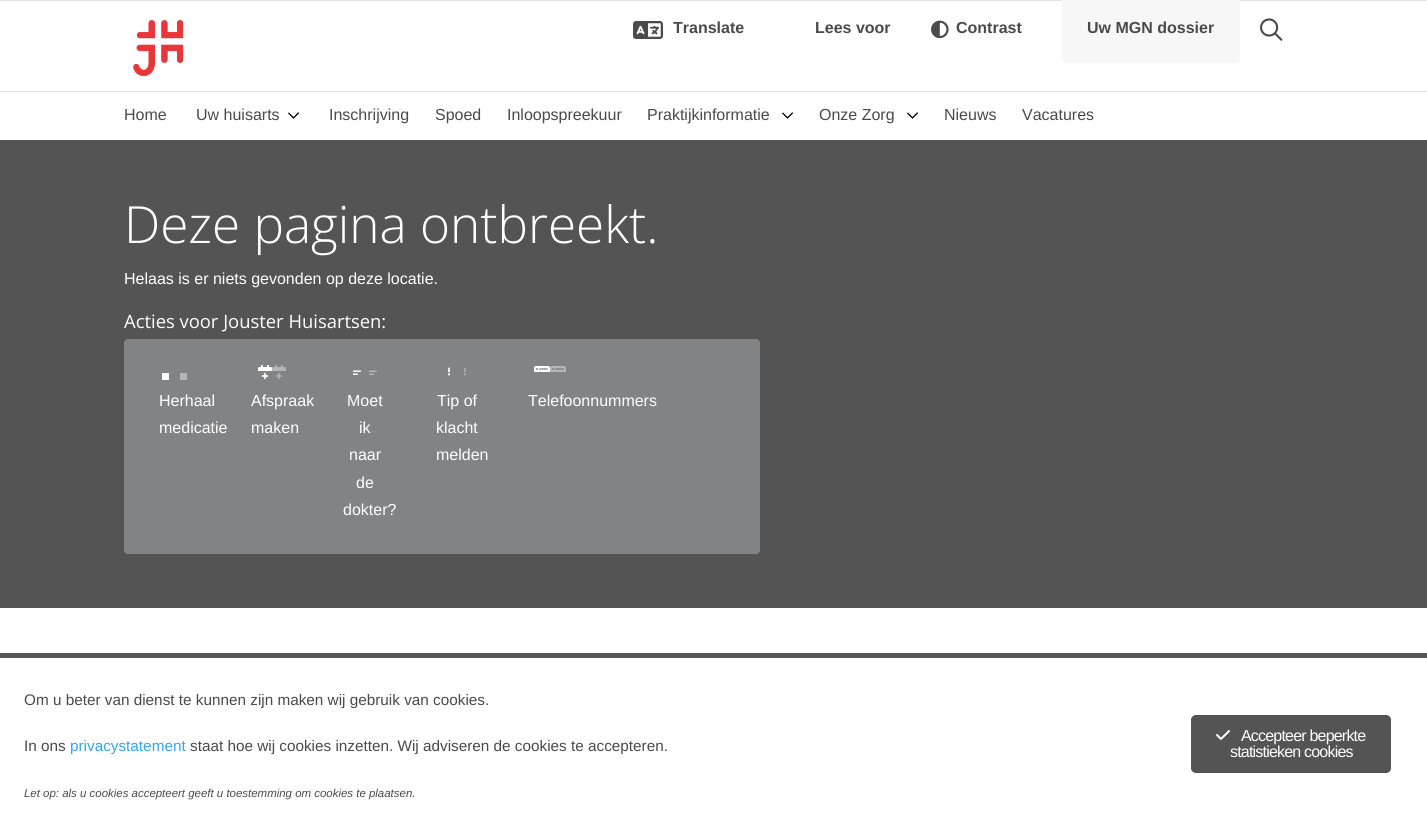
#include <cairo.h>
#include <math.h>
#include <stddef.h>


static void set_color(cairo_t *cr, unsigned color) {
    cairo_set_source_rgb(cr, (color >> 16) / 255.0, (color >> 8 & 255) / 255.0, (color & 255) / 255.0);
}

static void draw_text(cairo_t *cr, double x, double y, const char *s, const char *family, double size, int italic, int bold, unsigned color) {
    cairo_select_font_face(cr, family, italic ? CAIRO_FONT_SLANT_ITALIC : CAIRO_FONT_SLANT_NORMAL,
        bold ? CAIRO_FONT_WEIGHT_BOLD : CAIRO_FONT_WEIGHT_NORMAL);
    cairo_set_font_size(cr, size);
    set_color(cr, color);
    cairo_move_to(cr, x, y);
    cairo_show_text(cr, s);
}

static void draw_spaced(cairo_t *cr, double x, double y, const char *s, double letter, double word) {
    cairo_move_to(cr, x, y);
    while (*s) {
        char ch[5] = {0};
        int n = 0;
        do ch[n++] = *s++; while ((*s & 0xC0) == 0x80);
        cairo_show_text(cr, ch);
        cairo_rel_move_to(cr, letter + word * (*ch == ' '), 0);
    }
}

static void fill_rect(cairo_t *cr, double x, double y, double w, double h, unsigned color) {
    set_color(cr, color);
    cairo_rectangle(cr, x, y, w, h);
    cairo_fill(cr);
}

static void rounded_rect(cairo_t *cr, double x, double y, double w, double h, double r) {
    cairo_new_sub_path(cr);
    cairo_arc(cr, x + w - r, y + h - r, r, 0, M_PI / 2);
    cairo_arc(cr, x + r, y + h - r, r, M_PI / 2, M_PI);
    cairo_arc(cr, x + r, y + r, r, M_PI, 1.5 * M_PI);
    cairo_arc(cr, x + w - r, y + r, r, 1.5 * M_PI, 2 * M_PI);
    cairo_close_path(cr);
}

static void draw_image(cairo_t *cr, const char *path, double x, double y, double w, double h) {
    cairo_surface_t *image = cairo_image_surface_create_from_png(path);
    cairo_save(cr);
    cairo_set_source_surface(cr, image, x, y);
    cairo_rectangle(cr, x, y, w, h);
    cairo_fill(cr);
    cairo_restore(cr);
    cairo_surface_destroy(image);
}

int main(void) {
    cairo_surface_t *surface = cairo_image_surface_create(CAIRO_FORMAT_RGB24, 1427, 829);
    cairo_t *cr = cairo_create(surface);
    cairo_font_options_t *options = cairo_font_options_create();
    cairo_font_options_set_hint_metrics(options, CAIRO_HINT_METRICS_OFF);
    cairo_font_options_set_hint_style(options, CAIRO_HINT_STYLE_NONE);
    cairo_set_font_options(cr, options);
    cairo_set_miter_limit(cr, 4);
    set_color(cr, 0xFFFFFF);
    cairo_paint(cr);
    fill_rect(cr, 0, 0, 1427, 1, 0xE5E5E5);
    fill_rect(cr, 0, 91, 1427, 1, 0xE5E5E5);
    draw_image(cr, "assets/img1.png", 133, 20, 51, 57);
    draw_image(cr, "assets/img2.png", 633, 21, 30, 18);
    draw_text(cr, 673, 33, "Translate", "Liberation Sans", 16, 0, 1, 0x4A4A4A);
    draw_text(cr, 815, 33, "Lees voor", "Liberation Sans", 16, 0, 1, 0x4A4A4A);
    draw_image(cr, "assets/img3.png", 931, 20, 18, 19);
    draw_text(cr, 956, 33, "Contrast", "Liberation Sans", 16, 0, 1, 0x4A4A4A);
    set_color(cr, 0xF7F7F7);
    cairo_new_path(cr);
    cairo_move_to(cr, 1062, -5);
    cairo_line_to(cr, 1240, -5);
    cairo_line_to(cr, 1240, 58);
    cairo_curve_to(cr, 1240, 61, 1238, 63, 1235, 63);
    cairo_line_to(cr, 1067, 63);
    cairo_curve_to(cr, 1064, 63, 1062, 61, 1062, 58);
    cairo_close_path(cr);
    cairo_fill(cr);
    draw_text(cr, 1087, 33, "Uw MGN dossier", "Liberation Sans", 16, 0, 1, 0x4A4A4A);
    draw_image(cr, "assets/img4.png", 1260, 18, 23, 23);
    draw_text(cr, 124, 120, "Home", "Liberation Sans", 16, 0, 0, 0x4A4A4A);
    draw_text(cr, 196, 120, "Uw huisarts", "Liberation Sans", 16, 0, 0, 0x4A4A4A);
    draw_image(cr, "assets/img5.png", 288, 112, 11, 7);
    draw_text(cr, 329, 120, "Inschrijving", "Liberation Sans", 16, 0, 0, 0x4A4A4A);
    draw_text(cr, 435, 120, "Spoed", "Liberation Sans", 16, 0, 0, 0x4A4A4A);
    draw_text(cr, 507, 120, "Inloopspreekuur", "Liberation Sans", 16, 0, 0, 0x4A4A4A);
    draw_text(cr, 647, 120, "Praktijkinformatie", "Liberation Sans", 16, 0, 0, 0x4A4A4A);
    draw_image(cr, "assets/img5.png", 782, 112, 11, 7);
    draw_text(cr, 819, 120, "Onze Zorg", "Liberation Sans", 16, 0, 0, 0x4A4A4A);
    draw_image(cr, "assets/img5.png", 907, 112, 11, 7);
    draw_text(cr, 944, 120, "Nieuws", "Liberation Sans", 16, 0, 0, 0x4A4A4A);
    draw_text(cr, 1022, 120, "Vacatures", "Liberation Sans", 16, 0, 0, 0x4A4A4A);
    fill_rect(cr, 0, 140, 1427, 468, 0x545454);
    draw_text(cr, 124, 243, "Deze pagina ontbreekt.", "Open Sans Light", 51.25, 0, 0, 0xFFFFFF);
    draw_text(cr, 124, 284, "Helaas is er niets gevonden op deze locatie.", "Liberation Sans", 16, 0, 0, 0xFFFFFF);
    draw_text(cr, 124, 328, "Acties voor Jouster Huisartsen:", "Open Sans", 18.4, 0, 0, 0xFFFFFF);
    set_color(cr, 0x808486);
    rounded_rect(cr, 124, 339, 636, 215, 4);
    cairo_fill(cr);
    fill_rect(cr, 162, 373, 7, 7, 0xFFFFFF);
    fill_rect(cr, 180, 373, 7, 7, 0xB3B5B6);
    draw_text(cr, 159, 406, "Herhaal", "Liberation Sans", 16, 0, 0, 0xFFFFFF);
    draw_text(cr, 159, 433, "medicatie", "Liberation Sans", 16, 0, 0, 0xFFFFFF);
    draw_image(cr, "assets/img6.png", 258, 365, 14, 15);
    draw_image(cr, "assets/img7.png", 258, 365, 28, 14);
    draw_text(cr, 251, 406, "Afspraak", "Liberation Sans", 16, 0, 0, 0xFFFFFF);
    draw_text(cr, 251, 433, "maken", "Liberation Sans", 16, 0, 0, 0xFFFFFF);
    draw_image(cr, "assets/img8.png", 353, 370, 8, 5);
    draw_image(cr, "assets/img9.png", 353, 370, 24, 5);
    draw_text(cr, 347, 406, "Moet", "Liberation Sans", 16, 0, 0, 0xFFFFFF);
    draw_text(cr, 359, 433, "ik", "Liberation Sans", 16, 0, 0, 0xFFFFFF);
    draw_text(cr, 349, 460, "naar", "Liberation Sans", 16, 0, 0, 0xFFFFFF);
    draw_text(cr, 356, 488, "de", "Liberation Sans", 16, 0, 0, 0xFFFFFF);
    draw_text(cr, 343, 515, "dokter?", "Liberation Sans", 16, 0, 0, 0xFFFFFF);
    draw_image(cr, "assets/img10.png", 448, 367, 2, 9);
    draw_image(cr, "assets/img11.png", 448, 367, 18, 9);
    draw_text(cr, 437, 406, "Tip of", "Liberation Sans", 16, 0, 0, 0xFFFFFF);
    draw_text(cr, 436, 433, "klacht", "Liberation Sans", 16, 0, 0, 0xFFFFFF);
    draw_text(cr, 436, 460, "melden", "Liberation Sans", 16, 0, 0, 0xFFFFFF);
    draw_image(cr, "assets/img12.png", 534, 366, 16, 6);
    draw_image(cr, "assets/img13.png", 534, 366, 32, 6);
    draw_text(cr, 528, 406, "Telefoonnummers", "Liberation Sans", 16, 0, 0, 0xFFFFFF);
    fill_rect(cr, 0, 653, 1427, 5, 0x545454);
    draw_text(cr, 24, 705, "Om u beter van dienst te kunnen zijn maken wij gebruik van cookies.", "Liberation Sans", 15.3, 0, 0, 0x4A4A4A);
    draw_text(cr, 24, 751, "In ons", "Liberation Sans", 15.3, 0, 0, 0x4A4A4A);
    draw_text(cr, 70, 751, "privacystatement", "Liberation Sans", 15.3, 0, 0, 0x31A8F0);
    draw_text(cr, 190, 751, "staat hoe wij cookies inzetten. Wij adviseren de cookies te accepteren.", "Liberation Sans", 15.3, 0, 0, 0x4A4A4A);
    draw_text(cr, 24, 797, "Let op: als u cookies accepteert geeft u toestemming om cookies te plaatsen.", "Liberation Sans", 11.45, 1, 0, 0x4A4A4A);
    set_color(cr, 0x545454);
    rounded_rect(cr, 1191.5, 715.5, 199, 57, 4.5);
    cairo_fill_preserve(cr);
    cairo_set_line_width(cr, 1);
    cairo_stroke(cr);
    draw_image(cr, "assets/img14.png", 1216, 730, 14, 10);
    cairo_select_font_face(cr, "Liberation Sans", CAIRO_FONT_SLANT_NORMAL, CAIRO_FONT_WEIGHT_NORMAL);
    cairo_set_font_size(cr, 16);
    set_color(cr, 0xFFFFFF);
    draw_spaced(cr, 1241, 741, "Accepteer beperkte", -0.8, 0);
    draw_spaced(cr, 1230, 757, "statistieken cookies", -0.8, 0);
    cairo_surface_write_to_png(surface, "output.png");
    cairo_font_options_destroy(options);
    cairo_destroy(cr);
    cairo_surface_destroy(surface);
    return 0;
}
